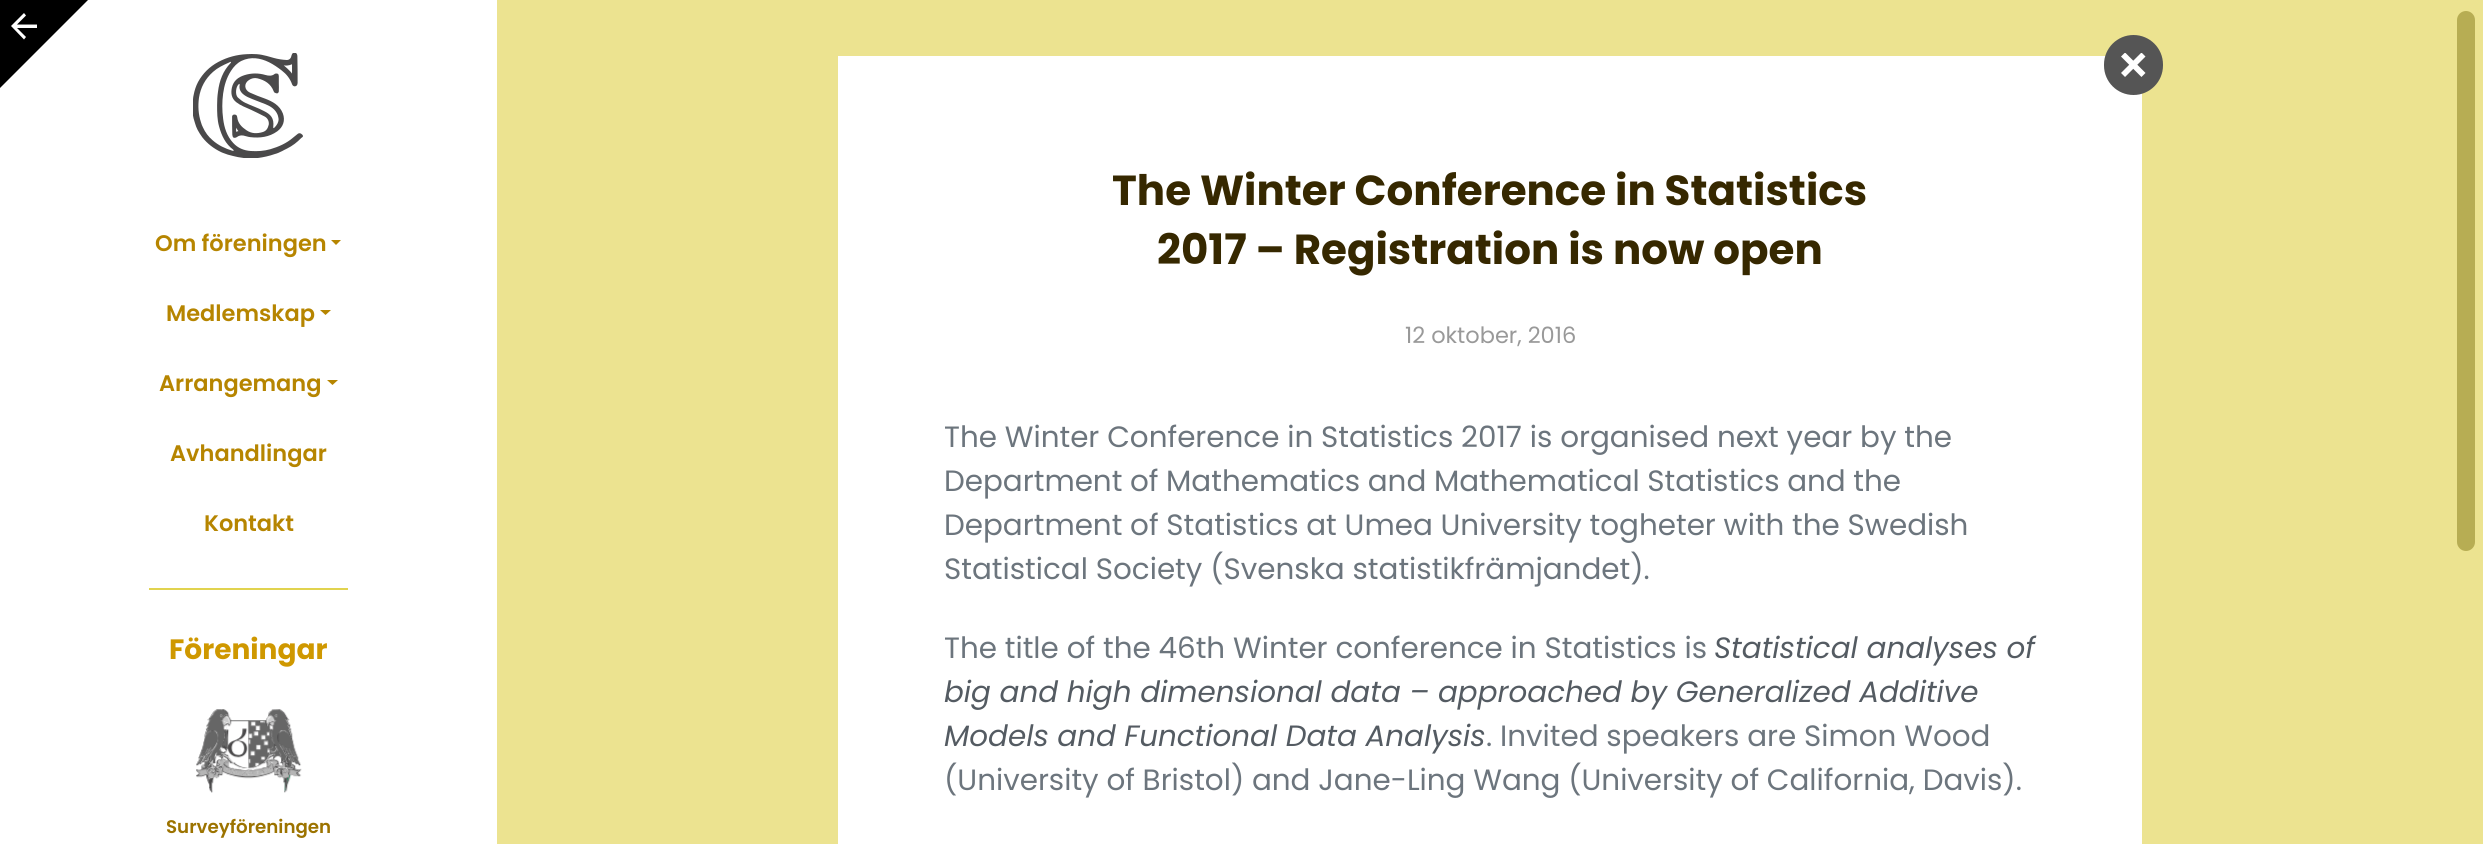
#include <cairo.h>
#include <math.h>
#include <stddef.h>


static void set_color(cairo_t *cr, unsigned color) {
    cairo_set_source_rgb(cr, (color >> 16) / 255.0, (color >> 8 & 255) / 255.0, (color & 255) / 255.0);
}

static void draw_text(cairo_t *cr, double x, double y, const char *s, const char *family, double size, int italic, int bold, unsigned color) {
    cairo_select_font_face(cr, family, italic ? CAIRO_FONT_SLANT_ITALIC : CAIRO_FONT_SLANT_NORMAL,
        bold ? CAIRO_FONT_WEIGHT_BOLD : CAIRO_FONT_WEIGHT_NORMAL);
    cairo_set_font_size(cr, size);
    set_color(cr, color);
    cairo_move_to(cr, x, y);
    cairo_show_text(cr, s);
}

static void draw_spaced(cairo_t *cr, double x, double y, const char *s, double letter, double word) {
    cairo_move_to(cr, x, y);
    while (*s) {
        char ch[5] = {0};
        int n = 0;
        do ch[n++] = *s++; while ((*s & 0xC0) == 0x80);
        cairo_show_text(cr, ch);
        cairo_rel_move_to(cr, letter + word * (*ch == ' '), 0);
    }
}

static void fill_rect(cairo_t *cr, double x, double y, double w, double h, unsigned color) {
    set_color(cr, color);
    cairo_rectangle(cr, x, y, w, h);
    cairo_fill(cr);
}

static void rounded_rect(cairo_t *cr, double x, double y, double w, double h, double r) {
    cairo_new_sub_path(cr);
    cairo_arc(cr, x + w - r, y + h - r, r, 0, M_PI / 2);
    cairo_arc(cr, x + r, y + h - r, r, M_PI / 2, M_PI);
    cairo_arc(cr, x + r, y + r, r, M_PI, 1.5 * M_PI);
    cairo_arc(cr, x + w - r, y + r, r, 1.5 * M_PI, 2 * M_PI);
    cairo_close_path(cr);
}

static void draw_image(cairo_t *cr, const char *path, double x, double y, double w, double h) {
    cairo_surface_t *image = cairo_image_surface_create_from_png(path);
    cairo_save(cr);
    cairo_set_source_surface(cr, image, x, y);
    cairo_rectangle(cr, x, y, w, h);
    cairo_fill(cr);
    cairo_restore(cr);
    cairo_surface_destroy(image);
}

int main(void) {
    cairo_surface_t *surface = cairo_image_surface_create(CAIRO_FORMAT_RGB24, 2483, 844);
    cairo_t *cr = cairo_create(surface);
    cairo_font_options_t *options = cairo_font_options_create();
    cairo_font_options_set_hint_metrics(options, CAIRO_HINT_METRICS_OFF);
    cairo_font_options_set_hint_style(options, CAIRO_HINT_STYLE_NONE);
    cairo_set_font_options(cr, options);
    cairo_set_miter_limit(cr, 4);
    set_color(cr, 0xECE390);
    cairo_paint(cr);
    fill_rect(cr, 0, 0, 497, 844, 0xFFFFFF);
    set_color(cr, 0x000000);
    cairo_new_path(cr);
    cairo_move_to(cr, 0, 88);
    cairo_line_to(cr, 88, 0);
    cairo_line_to(cr, 0, 0);
    cairo_close_path(cr);
    cairo_fill(cr);
    set_color(cr, 0xFFFFFF);
    cairo_new_path(cr);
    cairo_move_to(cr, 37, 24.5);
    cairo_line_to(cr, 17, 24.5);
    cairo_line_to(cr, 26, 15.5);
    cairo_line_to(cr, 24, 13);
    cairo_line_to(cr, 11, 26);
    cairo_line_to(cr, 24, 39.5);
    cairo_line_to(cr, 26, 37);
    cairo_line_to(cr, 17, 28);
    cairo_line_to(cr, 37, 28);
    cairo_close_path(cr);
    cairo_fill(cr);
    draw_image(cr, "assets/img1.png", 193, 53, 110, 105);
    draw_text(cr, 155, 251, "Om föreningen", "Poppins SemiBold", 22.5, 0, 0, 0xB68500);
    cairo_new_path(cr);
    cairo_move_to(cr, 331, 240);
    cairo_line_to(cr, 341, 240);
    cairo_line_to(cr, 336, 245);
    cairo_close_path(cr);
    cairo_fill(cr);
    draw_text(cr, 166, 321, "Medlemskap", "Poppins SemiBold", 22.5, 0, 0, 0xB68500);
    cairo_new_path(cr);
    cairo_move_to(cr, 320, 310);
    cairo_line_to(cr, 331, 310);
    cairo_line_to(cr, 325.5, 315);
    cairo_close_path(cr);
    cairo_fill(cr);
    draw_text(cr, 159, 391, "Arrangemang", "Poppins SemiBold", 22.5, 0, 0, 0xB68500);
    cairo_new_path(cr);
    cairo_move_to(cr, 327, 380);
    cairo_line_to(cr, 338, 380);
    cairo_line_to(cr, 332.5, 385);
    cairo_close_path(cr);
    cairo_fill(cr);
    draw_text(cr, 170, 461, "Avhandlingar", "Poppins SemiBold", 22.5, 0, 0, 0xB68500);
    draw_text(cr, 204, 531, "Kontakt", "Poppins SemiBold", 22.5, 0, 0, 0xB68500);
    fill_rect(cr, 149, 588, 199, 2, 0xE1D34F);
    draw_text(cr, 169, 659, "Föreningar", "Poppins", 28, 0, 1, 0xCF9800);
    draw_image(cr, "assets/img2.png", 196, 709, 106, 84);
    draw_text(cr, 166, 833, "Surveyföreningen", "Poppins SemiBold", 18.25, 0, 0, 0x9C7300);
    fill_rect(cr, 838, 56, 1304, 788, 0xFFFFFF);
    set_color(cr, 0x555555);
    rounded_rect(cr, 2104, 35, 59, 60, 29.5);
    cairo_fill(cr);
    draw_image(cr, "assets/img3.png", 2121, 53, 25, 24);
    draw_text(cr, 1112, 205, "The Winter Conference in Statistics", "Poppins", 42, 0, 1, 0x362800);
    draw_text(cr, 1157, 264, "2017 – Registration is now open", "Poppins", 42, 0, 1, 0x362800);
    draw_text(cr, 1405, 343, "12 oktober, 2016", "Poppins", 22.5, 0, 0, 0x999999);
    draw_text(cr, 944, 447, "The Winter Conference in Statistics 2017 is organised next year by the", "Poppins", 29.4, 0, 0, 0x6C757D);
    draw_spaced(cr, 944, 491, "Department of Mathematics and Mathematical Statistics and the", 0, -0.25);
    draw_spaced(cr, 944, 535, "Department of Statistics at Umea University togheter with the Swedish", 0, -0.1);
    draw_text(cr, 944, 579, "Statistical Society (Svenska statistikfrämjandet).", "Poppins", 29.4, 0, 0, 0x6C757D);
    draw_text(cr, 944, 658, "The title of the 46th Winter conference in Statistics is", "Poppins", 29.4, 0, 0, 0x6C757D);
    draw_text(cr, 1714, 658, "Statistical analyses of", "Poppins", 29.4, 1, 0, 0x545B62);
    draw_spaced(cr, 944, 702, "big and high dimensional data – approached by Generalized Additive", 0, -0.1);
    draw_spaced(cr, 944, 746, "Models and Functional Data Analysis", 0, -0.25);
    draw_text(cr, 1486, 746, ". Invited speakers are Simon Wood", "Poppins", 29.4, 0, 0, 0x6C757D);
    draw_spaced(cr, 944, 790, "(University of Bristol) and Jane-Ling Wang (University of California, Davis).", 0, -0.1);
    set_color(cr, 0xB7AD53);
    rounded_rect(cr, 2457, 11, 18, 540, 9);
    cairo_fill(cr);
    cairo_surface_write_to_png(surface, "output.png");
    cairo_font_options_destroy(options);
    cairo_destroy(cr);
    cairo_surface_destroy(surface);
    return 0;
}
